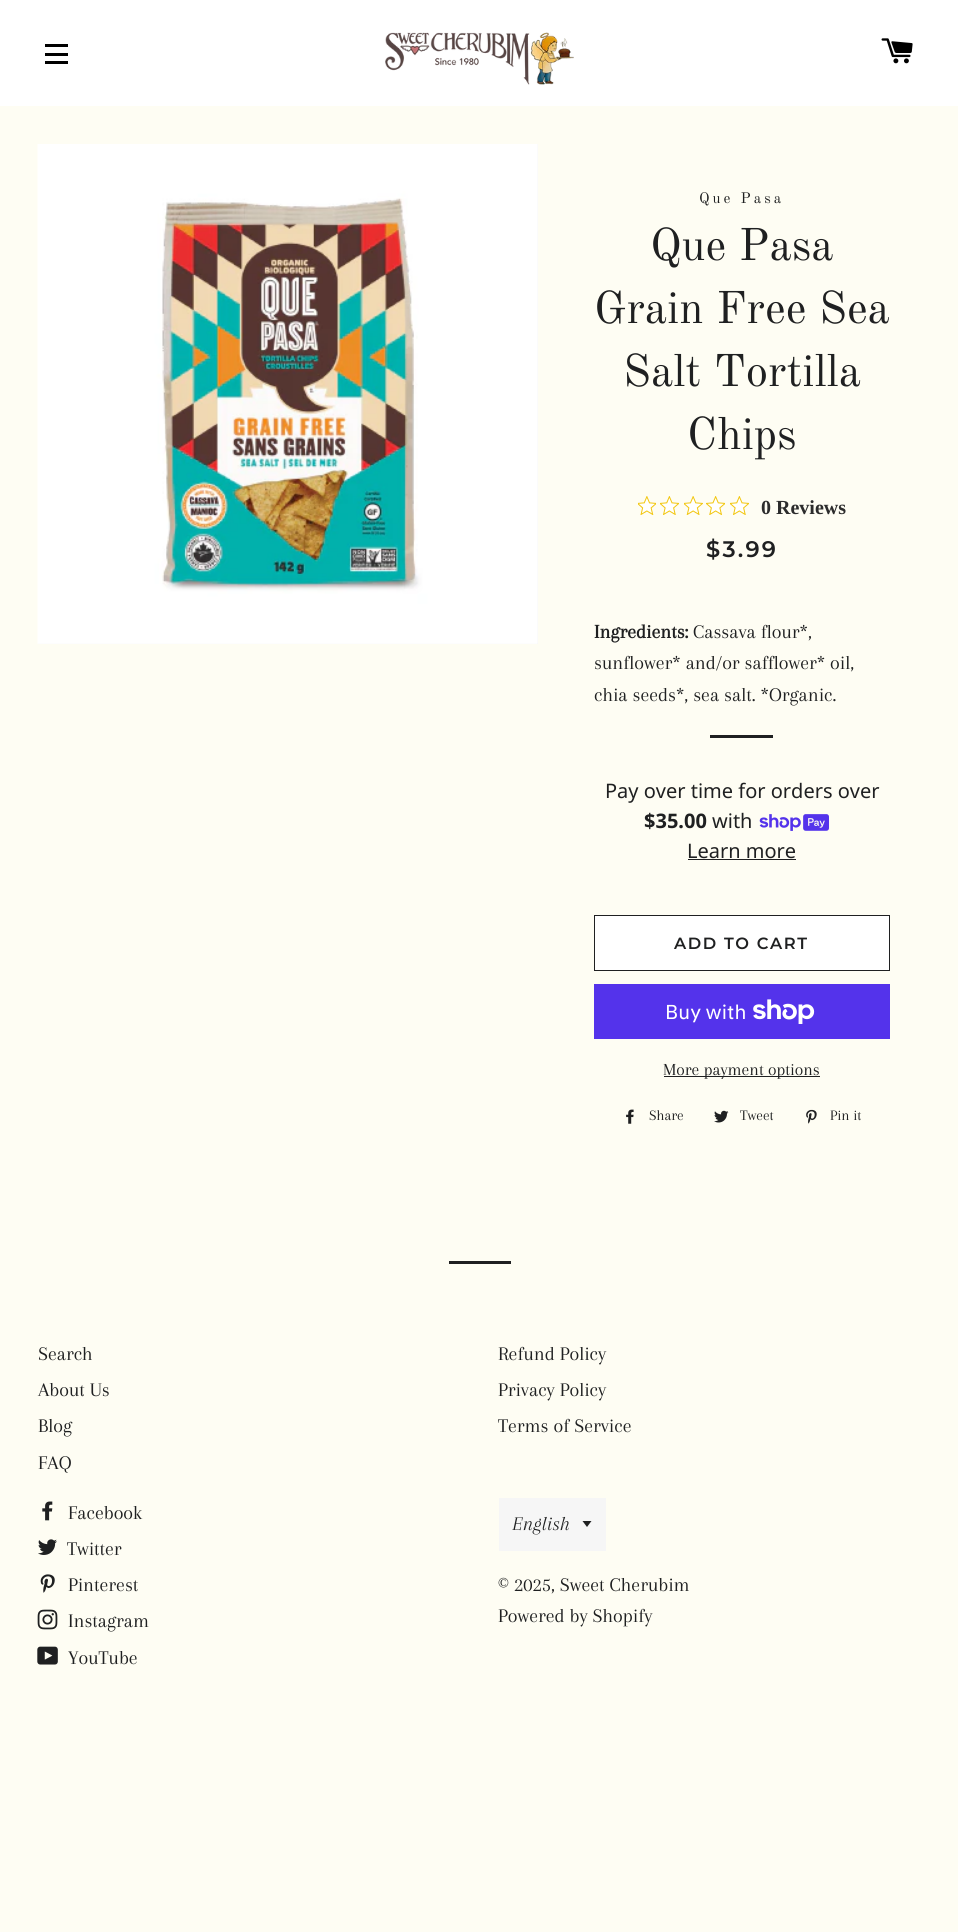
#include <cairo.h>
#include <math.h>
#include <stddef.h>


static void set_color(cairo_t *cr, unsigned color) {
    cairo_set_source_rgb(cr, (color >> 16) / 255.0, (color >> 8 & 255) / 255.0, (color & 255) / 255.0);
}

static void draw_text(cairo_t *cr, double x, double y, const char *s, const char *family, double size, int italic, int bold, unsigned color) {
    cairo_select_font_face(cr, family, italic ? CAIRO_FONT_SLANT_ITALIC : CAIRO_FONT_SLANT_NORMAL,
        bold ? CAIRO_FONT_WEIGHT_BOLD : CAIRO_FONT_WEIGHT_NORMAL);
    cairo_set_font_size(cr, size);
    set_color(cr, color);
    cairo_move_to(cr, x, y);
    cairo_show_text(cr, s);
}

static void draw_spaced(cairo_t *cr, double x, double y, const char *s, double letter, double word) {
    cairo_move_to(cr, x, y);
    while (*s) {
        char ch[5] = {0};
        int n = 0;
        do ch[n++] = *s++; while ((*s & 0xC0) == 0x80);
        cairo_show_text(cr, ch);
        cairo_rel_move_to(cr, letter + word * (*ch == ' '), 0);
    }
}

static void fill_rect(cairo_t *cr, double x, double y, double w, double h, unsigned color) {
    set_color(cr, color);
    cairo_rectangle(cr, x, y, w, h);
    cairo_fill(cr);
}

static void draw_image(cairo_t *cr, const char *path, double x, double y, double w, double h) {
    cairo_surface_t *image = cairo_image_surface_create_from_png(path);
    cairo_save(cr);
    cairo_set_source_surface(cr, image, x, y);
    cairo_rectangle(cr, x, y, w, h);
    cairo_fill(cr);
    cairo_restore(cr);
    cairo_surface_destroy(image);
}

int main(void) {
    cairo_surface_t *surface = cairo_image_surface_create(CAIRO_FORMAT_RGB24, 958, 1932);
    cairo_t *cr = cairo_create(surface);
    cairo_font_options_t *options = cairo_font_options_create();
    cairo_font_options_set_hint_metrics(options, CAIRO_HINT_METRICS_OFF);
    cairo_font_options_set_hint_style(options, CAIRO_HINT_STYLE_NONE);
    cairo_set_font_options(cr, options);
    cairo_set_miter_limit(cr, 4);
    set_color(cr, 0xFEFDF3);
    cairo_paint(cr);
    fill_rect(cr, 0, 0, 958, 106, 0xFFFFFF);
    fill_rect(cr, 45, 44, 23, 3, 0x000000);
    fill_rect(cr, 45, 53, 23, 3, 0x000000);
    fill_rect(cr, 45, 61, 23, 3, 0x000000);
    draw_image(cr, "assets/img1.png", 385, 32, 189, 53);
    draw_image(cr, "assets/img2.png", 881, 38, 32, 26);
    fill_rect(cr, 38, 144, 500, 500, 0xF6F6F6);
    draw_image(cr, "assets/img3.png", 37, 144, 501, 500);
    cairo_select_font_face(cr, "Old Standard TT", CAIRO_FONT_SLANT_NORMAL, CAIRO_FONT_WEIGHT_NORMAL);
    cairo_set_font_size(cr, 15);
    set_color(cr, 0x1F2021);
    draw_spaced(cr, 699, 203, "Que Pasa", 3, 0);
    draw_text(cr, 650, 260, "Que Pasa", "Old Standard TT", 45, 0, 0, 0x1F2021);
    draw_text(cr, 594, 323, "Grain Free Sea", "Old Standard TT", 45, 0, 0, 0x1F2021);
    draw_text(cr, 623, 386, "Salt Tortilla", "Old Standard TT", 45, 0, 0, 0x1F2021);
    draw_text(cr, 687, 449, "Chips", "Old Standard TT", 45, 0, 0, 0x1F2021);
    draw_image(cr, "assets/img4.png", 638, 496, 18, 19);
    draw_image(cr, "assets/img5.png", 660, 496, 19, 19);
    draw_image(cr, "assets/img6.png", 684, 496, 19, 19);
    draw_image(cr, "assets/img7.png", 706, 496, 19, 19);
    draw_image(cr, "assets/img5.png", 730, 496, 19, 19);
    draw_text(cr, 761, 514, "0 Reviews", "Liberation Serif", 20, 0, 1, 0x2C2C2C);
    cairo_select_font_face(cr, "Montserrat SemiBold", CAIRO_FONT_SLANT_NORMAL, CAIRO_FONT_WEIGHT_NORMAL);
    cairo_set_font_size(cr, 22.5);
    set_color(cr, 0x1F2021);
    draw_spaced(cr, 706, 557, "$3.99", 2.25, 0);
    draw_text(cr, 594, 638, "Ingredients:", "Arapey", 20, 0, 1, 0x1F2021);
    draw_text(cr, 693, 638, "Cassava flour*,", "Arapey", 20, 0, 0, 0x1F2021);
    draw_text(cr, 594, 669, "sunflower* and/or safflower* oil,", "Arapey", 20, 0, 0, 0x1F2021);
    draw_text(cr, 594, 701, "chia seeds*, sea salt. *Organic.", "Arapey", 20, 0, 0, 0x1F2021);
    fill_rect(cr, 710, 735, 63, 3, 0x1F2021);
    draw_text(cr, 605, 798, "Pay over time for orders over", "Noto Sans", 20, 0, 0, 0x1F2021);
    draw_text(cr, 644, 828, "$35.00", "Noto Sans", 20, 0, 1, 0x1F2021);
    draw_text(cr, 712, 828, "with", "Noto Sans", 20, 0, 0, 0x1F2021);
    draw_image(cr, "assets/img8.png", 759, 814, 70, 17);
    draw_text(cr, 687, 858, "Learn more", "Noto Sans", 20, 0, 0, 0x1F2021);
    fill_rect(cr, 688, 859, 108, 1, 0x1F2021);
    set_color(cr, 0xFFFFFF);
    cairo_rectangle(cr, 594.5, 915.5, 295, 55);
    cairo_fill_preserve(cr);
    set_color(cr, 0x1F2021);
    cairo_set_line_width(cr, 1);
    cairo_stroke(cr);
    cairo_select_font_face(cr, "Montserrat SemiBold", CAIRO_FONT_SLANT_NORMAL, CAIRO_FONT_WEIGHT_NORMAL);
    cairo_set_font_size(cr, 16.25);
    draw_spaced(cr, 674, 949, "ADD TO CART", 1.6, 0);
    fill_rect(cr, 594, 984, 296, 55, 0x5433EB);
    draw_text(cr, 665, 1019, "Buy with", "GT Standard", 20, 0, 0, 0xFFFFFF);
    draw_image(cr, "assets/img9.png", 753, 999, 62, 25);
    fill_rect(cr, 664, 1076, 156, 1, 0x1F2021);
    draw_text(cr, 663, 1075, "More payment options", "Arapey", 17.5, 0, 0, 0x1F2021);
    draw_image(cr, "assets/img10.png", 626, 1109, 8, 15);
    draw_text(cr, 649, 1120, "Share", "Arapey", 15, 0, 0, 0x1F2021);
    draw_image(cr, "assets/img11.png", 714, 1110, 15, 13);
    draw_text(cr, 740, 1120, "Tweet", "Arapey", 15, 0, 0, 0x1F2021);
    draw_image(cr, "assets/img12.png", 806, 1109, 11, 15);
    draw_text(cr, 830, 1120, "Pin it", "Arapey", 15, 0, 0, 0x1F2021);
    fill_rect(cr, 449, 1261, 62, 3, 0x1F2021);
    draw_text(cr, 38, 1360, "Search", "Arapey", 20, 0, 0, 0x1F2021);
    draw_text(cr, 38, 1396, "About Us", "Arapey", 20, 0, 0, 0x1F2021);
    draw_text(cr, 38, 1432, "Blog", "Arapey", 20, 0, 0, 0x1F2021);
    draw_text(cr, 38, 1469, "FAQ", "Arapey", 20, 0, 0, 0x1F2021);
    draw_text(cr, 498, 1360, "Refund Policy", "Arapey", 20, 0, 0, 0x1F2021);
    draw_text(cr, 498, 1396, "Privacy Policy", "Arapey", 20, 0, 0, 0x1F2021);
    draw_text(cr, 498, 1432, "Terms of Service", "Arapey", 20, 0, 0, 0x1F2021);
    draw_image(cr, "assets/img13.png", 42, 1501, 11, 20);
    draw_text(cr, 68, 1519, "Facebook", "Arapey", 20, 0, 0, 0x1F2021);
    draw_image(cr, "assets/img14.png", 38, 1539, 19, 16);
    draw_text(cr, 67, 1555, "Twitter", "Arapey", 20, 0, 0, 0x1F2021);
    draw_image(cr, "assets/img15.png", 40, 1574, 15, 19);
    draw_text(cr, 68, 1591, "Pinterest", "Arapey", 20, 0, 0, 0x1F2021);
    draw_image(cr, "assets/img16.png", 37, 1609, 21, 21);
    draw_text(cr, 68, 1627, "Instagram", "Arapey", 20, 0, 0, 0x1F2021);
    draw_image(cr, "assets/img17.png", 37, 1646, 21, 19);
    draw_text(cr, 68, 1664, "YouTube", "Arapey", 20, 0, 0, 0x1F2021);
    fill_rect(cr, 499, 1498, 107, 53, 0xF6F6F6);
    set_color(cr, 0x1F2021);
    cairo_new_path(cr);
    cairo_move_to(cr, 582.5, 1521);
    cairo_line_to(cr, 587, 1527);
    cairo_line_to(cr, 591.5, 1521);
    cairo_close_path(cr);
    cairo_fill(cr);
    draw_text(cr, 512, 1530, "English", "Arapey", 20, 1, 0, 0x1F2021);
    draw_text(cr, 498, 1591, "© 2025, Sweet Cherubim", "Arapey", 20, 0, 0, 0x1F2021);
    draw_text(cr, 498, 1622, "Powered by Shopify", "Arapey", 20, 0, 0, 0x1F2021);
    cairo_surface_write_to_png(surface, "output.png");
    cairo_font_options_destroy(options);
    cairo_destroy(cr);
    cairo_surface_destroy(surface);
    return 0;
}
